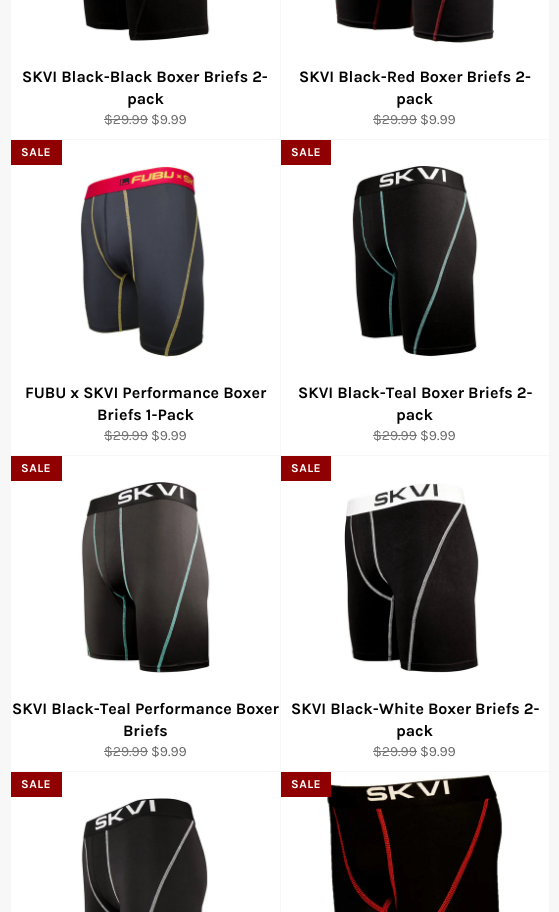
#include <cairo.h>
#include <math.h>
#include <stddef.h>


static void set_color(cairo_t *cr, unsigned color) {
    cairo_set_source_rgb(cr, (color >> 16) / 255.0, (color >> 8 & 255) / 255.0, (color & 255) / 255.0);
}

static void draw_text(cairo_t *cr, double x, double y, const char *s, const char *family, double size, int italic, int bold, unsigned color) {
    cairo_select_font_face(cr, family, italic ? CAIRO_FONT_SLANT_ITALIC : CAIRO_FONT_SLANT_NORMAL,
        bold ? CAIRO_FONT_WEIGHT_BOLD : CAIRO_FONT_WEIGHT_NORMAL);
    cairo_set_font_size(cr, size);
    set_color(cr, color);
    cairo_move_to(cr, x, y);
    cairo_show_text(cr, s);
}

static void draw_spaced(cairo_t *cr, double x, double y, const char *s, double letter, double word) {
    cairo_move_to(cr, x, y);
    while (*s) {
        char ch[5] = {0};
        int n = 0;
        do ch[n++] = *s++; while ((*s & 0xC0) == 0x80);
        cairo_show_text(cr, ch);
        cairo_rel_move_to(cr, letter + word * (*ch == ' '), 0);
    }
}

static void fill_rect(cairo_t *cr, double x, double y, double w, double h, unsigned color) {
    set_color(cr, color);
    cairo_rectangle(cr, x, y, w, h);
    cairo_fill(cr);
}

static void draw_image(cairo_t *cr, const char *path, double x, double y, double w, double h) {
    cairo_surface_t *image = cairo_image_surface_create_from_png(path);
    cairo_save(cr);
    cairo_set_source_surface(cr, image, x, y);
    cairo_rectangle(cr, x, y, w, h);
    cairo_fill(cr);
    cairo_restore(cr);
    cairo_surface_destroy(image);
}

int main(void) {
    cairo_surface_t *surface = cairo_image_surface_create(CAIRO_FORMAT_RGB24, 559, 912);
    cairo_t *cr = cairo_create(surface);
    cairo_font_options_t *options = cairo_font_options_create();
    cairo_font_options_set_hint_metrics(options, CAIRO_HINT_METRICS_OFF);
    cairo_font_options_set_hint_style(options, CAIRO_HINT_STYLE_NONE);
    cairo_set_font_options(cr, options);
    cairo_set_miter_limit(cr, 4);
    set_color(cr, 0xF7F7F7);
    cairo_paint(cr);
    fill_rect(cr, 11, 0, 269, 139, 0xFFFFFF);
    draw_image(cr, "assets/img1.png", 82, 0, 128, 41);
    draw_text(cr, 22, 82, "SKVI Black-Black Boxer Briefs 2-", "Karla", 16, 0, 1, 0x030303);
    draw_text(cr, 127, 104, "pack", "Karla", 16, 0, 1, 0x030303);
    draw_text(cr, 104, 124, "$29.99", "Karla", 14, 0, 0, 0x737373);
    fill_rect(cr, 104, 119, 44, 1, 0x737373);
    draw_text(cr, 151, 124, "$9.99", "Karla", 14, 0, 0, 0x666666);
    fill_rect(cr, 281, 0, 268, 139, 0xFFFFFF);
    draw_image(cr, "assets/img2.png", 334, 0, 160, 43);
    draw_text(cr, 299, 82, "SKVI Black-Red Boxer Briefs 2-", "Karla", 16, 0, 1, 0x030303);
    draw_text(cr, 396, 104, "pack", "Karla", 16, 0, 1, 0x030303);
    draw_text(cr, 373, 124, "$29.99", "Karla", 14, 0, 0, 0x737373);
    fill_rect(cr, 373, 119, 44, 1, 0x737373);
    draw_text(cr, 420, 124, "$9.99", "Karla", 14, 0, 0, 0x666666);
    fill_rect(cr, 11, 140, 269, 315, 0xFFFFFF);
    fill_rect(cr, 11, 140, 51, 25, 0x910000);
    cairo_select_font_face(cr, "Karla", CAIRO_FONT_SLANT_NORMAL, CAIRO_FONT_WEIGHT_BOLD);
    cairo_set_font_size(cr, 12);
    set_color(cr, 0xFFFFFF);
    draw_spaced(cr, 21, 156, "SALE", 0.5, 0);
    draw_image(cr, "assets/img3.png", 80, 166, 125, 191);
    draw_text(cr, 25, 398, "FUBU x SKVI Performance Boxer", "Karla", 16, 0, 1, 0x030303);
    draw_text(cr, 97, 420, "Briefs 1-Pack", "Karla", 16, 0, 1, 0x030303);
    draw_text(cr, 104, 440, "$29.99", "Karla", 14, 0, 0, 0x737373);
    fill_rect(cr, 104, 435, 44, 1, 0x737373);
    draw_text(cr, 151, 440, "$9.99", "Karla", 14, 0, 0, 0x666666);
    fill_rect(cr, 281, 140, 268, 315, 0xFFFFFF);
    fill_rect(cr, 281, 140, 50, 25, 0x910000);
    cairo_select_font_face(cr, "Karla", CAIRO_FONT_SLANT_NORMAL, CAIRO_FONT_WEIGHT_BOLD);
    cairo_set_font_size(cr, 12);
    set_color(cr, 0xFFFFFF);
    draw_spaced(cr, 291, 156, "SALE", 0.5, 0);
    draw_image(cr, "assets/img4.png", 352, 166, 126, 191);
    draw_text(cr, 298, 398, "SKVI Black-Teal Boxer Briefs 2-", "Karla", 16, 0, 1, 0x030303);
    draw_text(cr, 396, 420, "pack", "Karla", 16, 0, 1, 0x030303);
    draw_text(cr, 373, 440, "$29.99", "Karla", 14, 0, 0, 0x737373);
    fill_rect(cr, 373, 435, 44, 1, 0x737373);
    draw_text(cr, 420, 440, "$9.99", "Karla", 14, 0, 0, 0x666666);
    fill_rect(cr, 11, 456, 269, 315, 0xFFFFFF);
    fill_rect(cr, 11, 456, 51, 25, 0x910000);
    cairo_select_font_face(cr, "Karla", CAIRO_FONT_SLANT_NORMAL, CAIRO_FONT_WEIGHT_BOLD);
    cairo_set_font_size(cr, 12);
    set_color(cr, 0xFFFFFF);
    draw_spaced(cr, 21, 472, "SALE", 0.5, 0);
    draw_image(cr, "assets/img5.png", 81, 482, 129, 192);
    draw_text(cr, 12, 714, "SKVI Black-Teal Performance Boxer", "Karla", 16, 0, 1, 0x030303);
    draw_text(cr, 123, 736, "Briefs", "Karla", 16, 0, 1, 0x030303);
    draw_text(cr, 104, 756, "$29.99", "Karla", 14, 0, 0, 0x737373);
    fill_rect(cr, 104, 751, 44, 1, 0x737373);
    draw_text(cr, 151, 756, "$9.99", "Karla", 14, 0, 0, 0x666666);
    fill_rect(cr, 281, 456, 268, 315, 0xFFFFFF);
    fill_rect(cr, 281, 456, 50, 25, 0x910000);
    cairo_select_font_face(cr, "Karla", CAIRO_FONT_SLANT_NORMAL, CAIRO_FONT_WEIGHT_BOLD);
    cairo_set_font_size(cr, 12);
    set_color(cr, 0xFFFFFF);
    draw_spaced(cr, 291, 472, "SALE", 0.5, 0);
    draw_image(cr, "assets/img6.png", 344, 483, 135, 190);
    draw_text(cr, 291, 714, "SKVI Black-White Boxer Briefs 2-", "Karla", 16, 0, 1, 0x030303);
    draw_text(cr, 396, 736, "pack", "Karla", 16, 0, 1, 0x030303);
    draw_text(cr, 373, 756, "$29.99", "Karla", 14, 0, 0, 0x737373);
    fill_rect(cr, 373, 751, 44, 1, 0x737373);
    draw_text(cr, 420, 756, "$9.99", "Karla", 14, 0, 0, 0x666666);
    fill_rect(cr, 11, 772, 269, 140, 0xFFFFFF);
    fill_rect(cr, 11, 772, 51, 25, 0x910000);
    cairo_select_font_face(cr, "Karla", CAIRO_FONT_SLANT_NORMAL, CAIRO_FONT_WEIGHT_BOLD);
    cairo_set_font_size(cr, 12);
    set_color(cr, 0xFFFFFF);
    draw_spaced(cr, 21, 788, "SALE", 0.5, 0);
    draw_image(cr, "assets/img7.png", 81, 798, 127, 114);
    fill_rect(cr, 281, 772, 268, 140, 0xFFFFFF);
    draw_image(cr, "assets/img8.png", 325, 774, 178, 138);
    fill_rect(cr, 281, 772, 50, 25, 0x910000);
    set_color(cr, 0xFFFFFF);
    draw_spaced(cr, 291, 788, "SALE", 0.5, 0);
    cairo_surface_write_to_png(surface, "output.png");
    cairo_font_options_destroy(options);
    cairo_destroy(cr);
    cairo_surface_destroy(surface);
    return 0;
}
